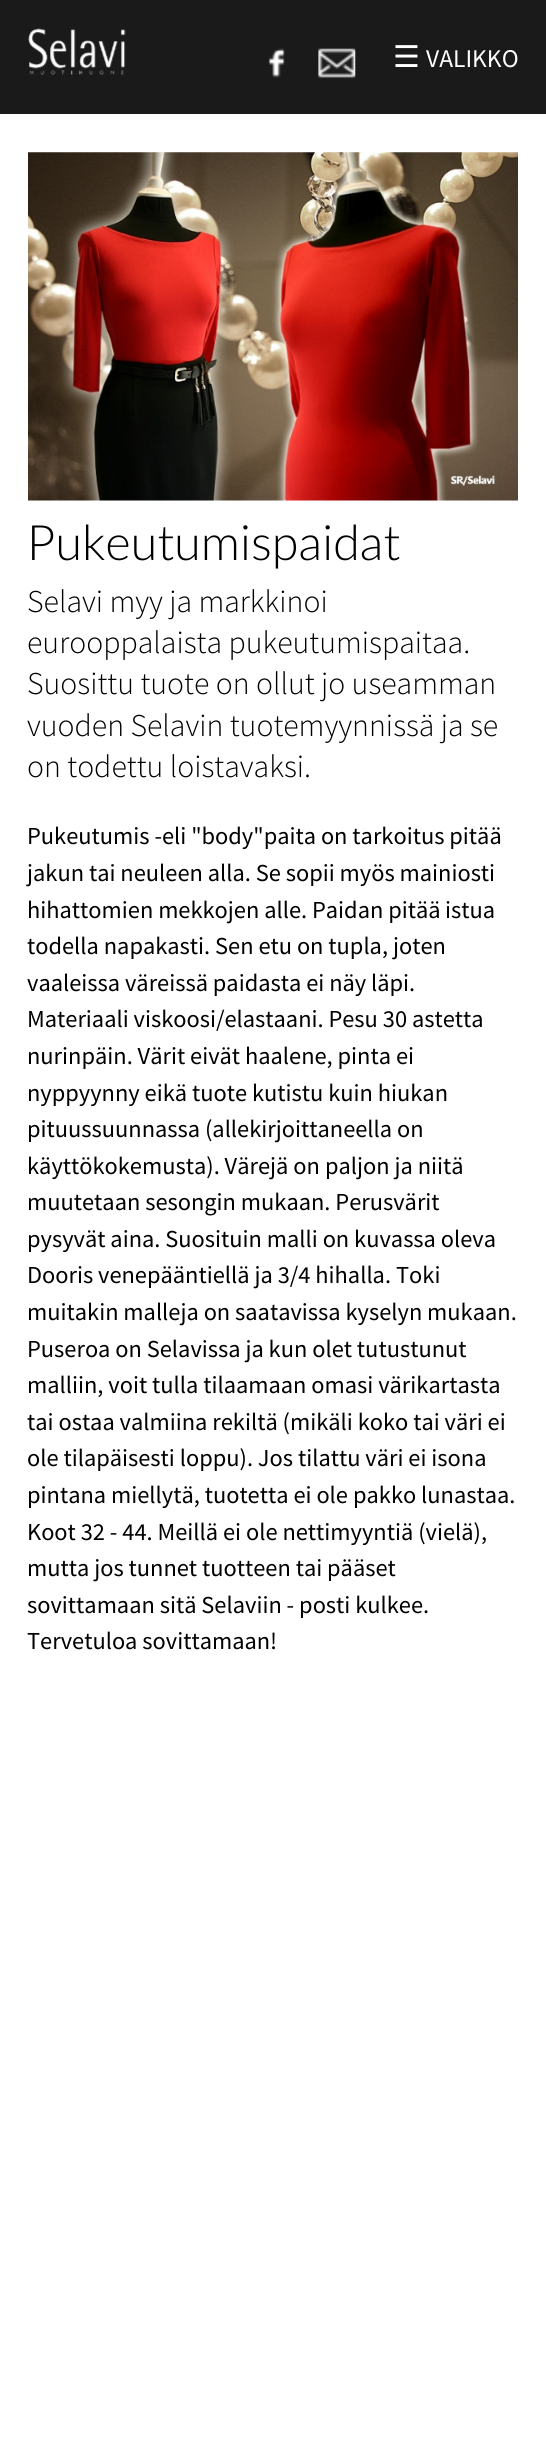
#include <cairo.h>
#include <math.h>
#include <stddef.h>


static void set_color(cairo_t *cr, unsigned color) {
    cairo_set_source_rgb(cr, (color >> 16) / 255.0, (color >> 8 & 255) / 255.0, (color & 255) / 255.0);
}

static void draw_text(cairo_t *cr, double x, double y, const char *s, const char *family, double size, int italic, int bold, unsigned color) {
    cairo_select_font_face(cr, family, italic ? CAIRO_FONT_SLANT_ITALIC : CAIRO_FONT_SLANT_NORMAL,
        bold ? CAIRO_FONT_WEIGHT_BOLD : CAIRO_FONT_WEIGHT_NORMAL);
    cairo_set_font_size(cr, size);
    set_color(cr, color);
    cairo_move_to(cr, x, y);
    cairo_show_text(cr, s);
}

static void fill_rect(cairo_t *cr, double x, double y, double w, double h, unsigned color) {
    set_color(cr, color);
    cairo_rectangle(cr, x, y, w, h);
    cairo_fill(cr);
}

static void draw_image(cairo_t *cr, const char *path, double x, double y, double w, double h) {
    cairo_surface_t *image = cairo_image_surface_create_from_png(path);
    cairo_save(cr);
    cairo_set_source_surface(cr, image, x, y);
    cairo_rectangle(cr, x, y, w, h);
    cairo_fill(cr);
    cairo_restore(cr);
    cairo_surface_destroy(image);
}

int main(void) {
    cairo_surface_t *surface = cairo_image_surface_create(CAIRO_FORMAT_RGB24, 546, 2463);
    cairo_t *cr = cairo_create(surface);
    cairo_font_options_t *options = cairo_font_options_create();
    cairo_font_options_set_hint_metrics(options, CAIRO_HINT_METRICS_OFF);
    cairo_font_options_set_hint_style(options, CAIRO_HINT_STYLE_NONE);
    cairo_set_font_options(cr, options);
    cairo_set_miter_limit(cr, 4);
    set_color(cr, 0xFFFFFF);
    cairo_paint(cr);
    fill_rect(cr, 0, 0, 546, 114, 0x1A1A1A);
    draw_image(cr, "assets/img1.png", 28, 28, 98, 48);
    draw_image(cr, "assets/img2.png", 268, 48, 17, 30);
    draw_image(cr, "assets/img3.png", 318, 48, 38, 31);
    draw_text(cr, 393, 67, "☰", "DejaVu Sans", 30, 0, 0, 0xFFFFFF);
    draw_text(cr, 426, 67, "VALIKKO", "Source Sans Pro", 25.5, 0, 0, 0xFFFFFF);
    draw_image(cr, "assets/img4.png", 28, 152, 490, 349);
    draw_text(cr, 27, 560, "Pukeutumispaidat", "Lato Light", 48.75, 0, 0, 0x000000);
    draw_text(cr, 27, 612, "Selavi myy ja markkinoi", "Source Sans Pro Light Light", 31.75, 0, 0, 0x000000);
    draw_text(cr, 27, 653, "eurooppalaista pukeutumispaitaa.", "Source Sans Pro Light Light", 31.75, 0, 0, 0x000000);
    draw_text(cr, 27, 694, "Suosittu tuote on ollut jo useamman", "Source Sans Pro Light Light", 31.75, 0, 0, 0x000000);
    draw_text(cr, 27, 736, "vuoden Selavin tuotemyynnissä ja se", "Source Sans Pro Light Light", 31.75, 0, 0, 0x000000);
    draw_text(cr, 27, 777, "on todettu loistavaksi.", "Source Sans Pro Light Light", 31.75, 0, 0, 0x000000);
    draw_text(cr, 27, 844, "Pukeutumis -eli \"body\"paita on tarkoitus pitää", "Source Sans Pro", 24.4, 0, 0, 0x000000);
    draw_text(cr, 27, 881, "jakun tai neuleen alla. Se sopii myös mainiosti", "Source Sans Pro", 24.4, 0, 0, 0x000000);
    draw_text(cr, 27, 918, "hihattomien mekkojen alle. Paidan pitää", "Source Sans Pro", 24.4, 0, 0, 0x000000);
    draw_text(cr, 445, 918, "istua", "Source Sans Pro", 24.4, 0, 0, 0x000000);
    draw_text(cr, 27, 954, "todella napakasti. Sen etu on tupla, joten", "Source Sans Pro", 24.4, 0, 0, 0x000000);
    draw_text(cr, 27, 991, "vaaleissa väreissä paidasta ei näy", "Source Sans Pro", 24.4, 0, 0, 0x000000);
    draw_text(cr, 371, 991, "läpi.", "Source Sans Pro", 24.4, 0, 0, 0x000000);
    draw_text(cr, 27, 1027, "Materiaali viskoosi/elastaani. Pesu 30 astetta", "Source Sans Pro", 24.4, 0, 0, 0x000000);
    draw_text(cr, 27, 1064, "nurinpäin. Värit eivät haalene, pinta ei", "Source Sans Pro", 24.4, 0, 0, 0x000000);
    draw_text(cr, 27, 1101, "nyppyynny eikä tuote kutistu kuin hiukan", "Source Sans Pro", 24.4, 0, 0, 0x000000);
    draw_text(cr, 27, 1137, "pituussuunnassa (allekirjoittaneella on", "Source Sans Pro", 24.4, 0, 0, 0x000000);
    draw_text(cr, 27, 1174, "käyttökokemusta). Värejä on", "Source Sans Pro", 24.4, 0, 0, 0x000000);
    draw_text(cr, 325, 1174, "paljon ja niitä", "Source Sans Pro", 24.4, 0, 0, 0x000000);
    draw_text(cr, 27, 1210, "muutetaan sesongin mukaan. Perusvärit", "Source Sans Pro", 24.4, 0, 0, 0x000000);
    draw_text(cr, 27, 1247, "pysyvät aina. Suosituin malli on kuvassa oleva", "Source Sans Pro", 24.4, 0, 0, 0x000000);
    draw_text(cr, 27, 1283, "Dooris venepääntiellä ja 3/4 hihalla.", "Source Sans Pro", 24.4, 0, 0, 0x000000);
    draw_text(cr, 396, 1283, "Toki", "Source Sans Pro", 24.4, 0, 0, 0x000000);
    draw_text(cr, 27, 1320, "muitakin malleja on saatavissa kyselyn mukaan.", "Source Sans Pro", 24.4, 0, 0, 0x000000);
    draw_text(cr, 27, 1357, "Puseroa on Selavissa ja kun olet tutustunut", "Source Sans Pro", 24.4, 0, 0, 0x000000);
    draw_text(cr, 27, 1393, "malliin, voit tulla tilaamaan omasi värikartasta", "Source Sans Pro", 24.4, 0, 0, 0x000000);
    draw_text(cr, 27, 1430, "tai ostaa valmiina rekiltä (mikäli koko tai väri ei", "Source Sans Pro", 24.4, 0, 0, 0x000000);
    draw_text(cr, 27, 1466, "ole tilapäisesti loppu). Jos tilattu väri ei isona", "Source Sans Pro", 24.4, 0, 0, 0x000000);
    draw_text(cr, 27, 1503, "pintana miellytä, tuotetta ei ole", "Source Sans Pro", 24.4, 0, 0, 0x000000);
    draw_text(cr, 353, 1503, "pakko lunastaa.", "Source Sans Pro", 24.4, 0, 0, 0x000000);
    draw_text(cr, 27, 1540, "Koot 32 - 44. Meillä ei ole nettimyyntiä (vielä),", "Source Sans Pro", 24.4, 0, 0, 0x000000);
    draw_text(cr, 27, 1576, "mutta jos tunnet tuotteen tai pääset", "Source Sans Pro", 24.4, 0, 0, 0x000000);
    draw_text(cr, 27, 1613, "sovittamaan sitä Selaviin - posti kulkee.", "Source Sans Pro", 24.4, 0, 0, 0x000000);
    draw_text(cr, 27, 1649, "Tervetuloa sovittamaan!", "Source Sans Pro", 24.4, 0, 0, 0x000000);
    cairo_surface_write_to_png(surface, "output.png");
    cairo_font_options_destroy(options);
    cairo_destroy(cr);
    cairo_surface_destroy(surface);
    return 0;
}
